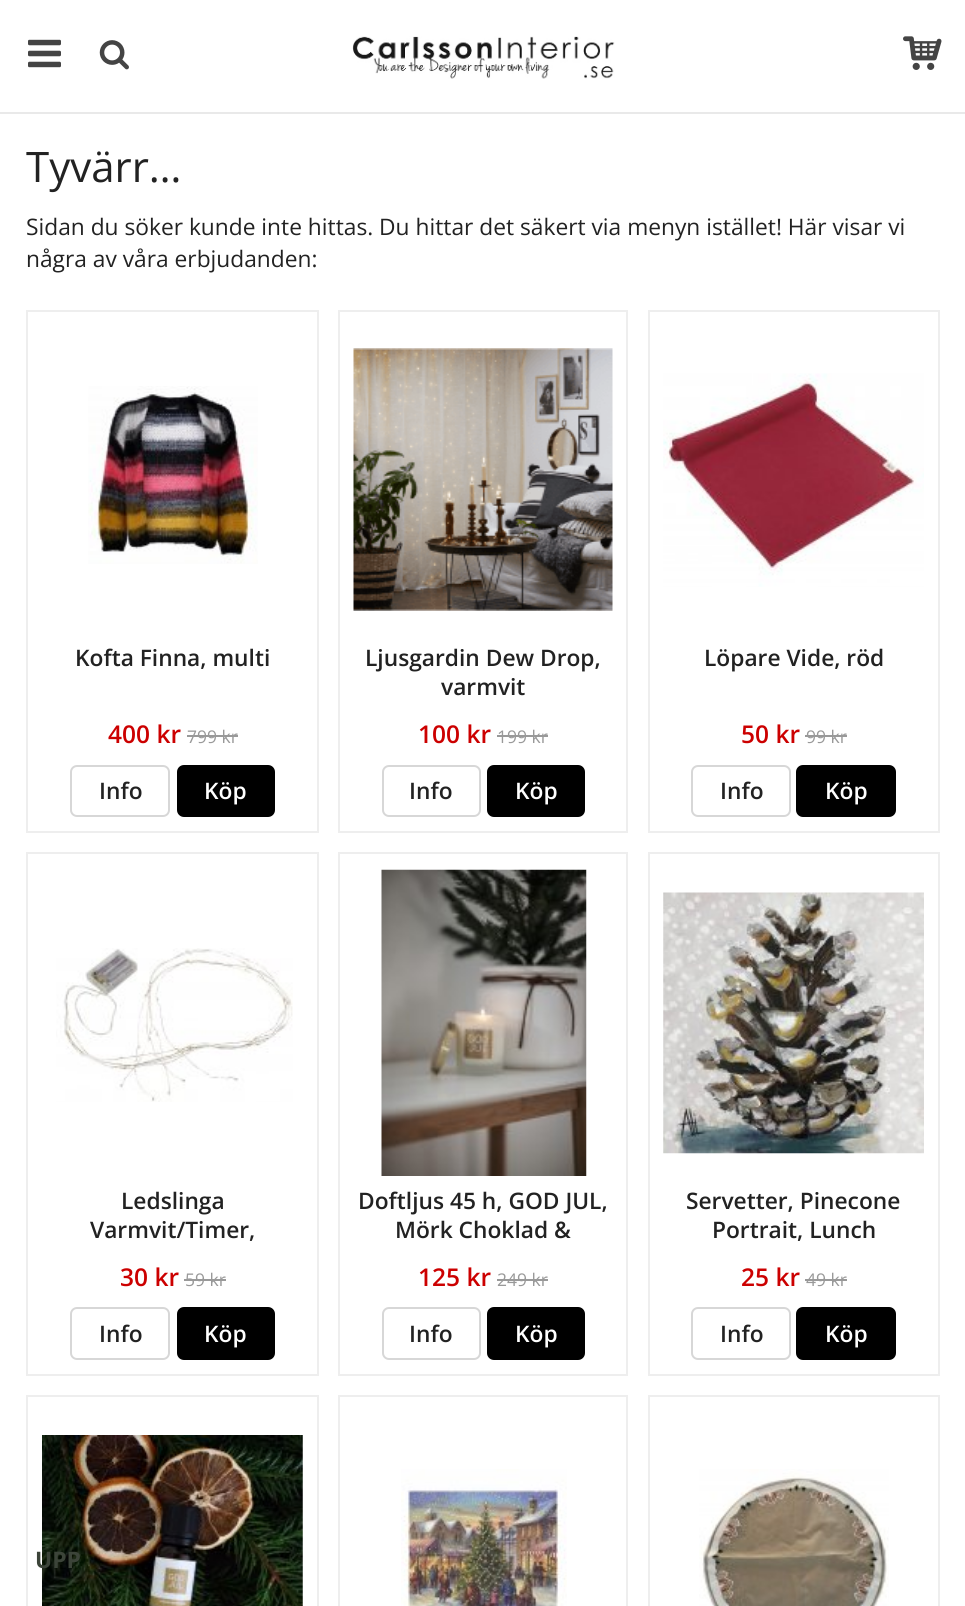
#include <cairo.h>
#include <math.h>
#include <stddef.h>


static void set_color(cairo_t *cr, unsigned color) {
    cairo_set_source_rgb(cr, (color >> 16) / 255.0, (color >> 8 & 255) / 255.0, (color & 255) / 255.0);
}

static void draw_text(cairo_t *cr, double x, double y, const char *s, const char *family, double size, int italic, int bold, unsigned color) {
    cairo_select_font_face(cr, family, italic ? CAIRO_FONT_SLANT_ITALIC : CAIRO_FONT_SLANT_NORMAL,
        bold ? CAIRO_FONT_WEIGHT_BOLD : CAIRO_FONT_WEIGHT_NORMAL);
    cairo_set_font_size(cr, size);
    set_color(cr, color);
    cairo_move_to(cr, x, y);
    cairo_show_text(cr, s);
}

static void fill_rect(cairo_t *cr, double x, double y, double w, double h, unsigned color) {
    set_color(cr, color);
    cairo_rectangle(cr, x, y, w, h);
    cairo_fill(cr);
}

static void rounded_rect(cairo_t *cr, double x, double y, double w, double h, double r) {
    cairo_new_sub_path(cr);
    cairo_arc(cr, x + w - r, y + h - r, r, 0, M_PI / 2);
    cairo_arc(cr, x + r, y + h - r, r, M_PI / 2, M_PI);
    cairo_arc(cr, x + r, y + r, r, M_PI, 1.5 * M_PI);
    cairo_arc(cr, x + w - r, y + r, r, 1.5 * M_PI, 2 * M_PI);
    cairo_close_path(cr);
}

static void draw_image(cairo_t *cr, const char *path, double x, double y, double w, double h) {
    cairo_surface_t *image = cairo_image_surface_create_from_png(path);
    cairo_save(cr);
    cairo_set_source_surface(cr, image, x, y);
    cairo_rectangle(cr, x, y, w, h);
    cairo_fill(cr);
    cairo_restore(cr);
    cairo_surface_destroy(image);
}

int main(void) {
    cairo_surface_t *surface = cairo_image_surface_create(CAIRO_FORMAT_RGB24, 965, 1606);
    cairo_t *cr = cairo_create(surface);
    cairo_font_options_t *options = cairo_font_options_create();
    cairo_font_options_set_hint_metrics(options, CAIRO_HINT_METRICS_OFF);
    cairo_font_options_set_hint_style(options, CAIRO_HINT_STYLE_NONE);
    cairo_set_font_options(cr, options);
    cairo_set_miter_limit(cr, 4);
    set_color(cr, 0xFFFFFF);
    cairo_paint(cr);
    fill_rect(cr, 0, 112, 965, 2, 0xE9E9E9);
    draw_image(cr, "assets/img1.png", 28, 39, 33, 29);
    draw_image(cr, "assets/img2.png", 99, 40, 30, 30);
    draw_image(cr, "assets/img3.png", 352, 36, 263, 43);
    draw_image(cr, "assets/img4.png", 903, 36, 39, 34);
    draw_text(cr, 26, 182, "Tyvärr…", "Open Sans", 42, 0, 0, 0x222222);
    draw_text(cr, 26, 235, "Sidan du söker kunde inte hittas. Du hittar det säkert via menyn istället! Här visar vi", "Open Sans", 22.75, 0, 0, 0x222222);
    draw_text(cr, 26, 267, "några av våra erbjudanden:", "Open Sans", 22.75, 0, 0, 0x222222);
    cairo_rectangle(cr, 27, 311, 291, 521);
    set_color(cr, 0xEEEEEE);
    cairo_stroke(cr);
    draw_image(cr, "assets/img5.png", 88, 386, 170, 178);
    draw_text(cr, 75, 666, "Kofta Finna, multi", "Open Sans SemiBold", 22.75, 0, 0, 0x222222);
    draw_text(cr, 108, 743, "400 kr", "Open Sans SemiBold", 24.5, 0, 0, 0xCC0000);
    draw_text(cr, 187, 743, "799 kr", "Open Sans", 17.5, 0, 0, 0x999999);
    fill_rect(cr, 187, 735, 51, 2, 0x999999);
    rounded_rect(cr, 71, 766, 98, 50, 6);
    set_color(cr, 0xD7D7D7);
    cairo_stroke(cr);
    draw_text(cr, 99, 799, "Info", "Open Sans SemiBold", 22.75, 0, 0, 0x222222);
    set_color(cr, 0x000000);
    rounded_rect(cr, 178, 766, 96, 50, 6);
    cairo_fill_preserve(cr);
    cairo_stroke(cr);
    draw_text(cr, 204, 799, "Köp", "Open Sans SemiBold", 22.75, 0, 0, 0xFFFFFF);
    cairo_rectangle(cr, 339, 311, 288, 521);
    set_color(cr, 0xEEEEEE);
    cairo_stroke(cr);
    draw_image(cr, "assets/img6.png", 353, 348, 260, 263);
    draw_text(cr, 365, 666, "Ljusgardin Dew Drop,", "Open Sans SemiBold", 22.75, 0, 0, 0x222222);
    draw_text(cr, 441, 695, "varmvit", "Open Sans SemiBold", 22.75, 0, 0, 0x222222);
    draw_text(cr, 418, 743, "100 kr", "Open Sans SemiBold", 24.5, 0, 0, 0xCC0000);
    draw_text(cr, 497, 743, "199 kr", "Open Sans", 17.5, 0, 0, 0x999999);
    fill_rect(cr, 497, 735, 51, 2, 0x999999);
    rounded_rect(cr, 383, 766, 97, 50, 6);
    set_color(cr, 0xD7D7D7);
    cairo_stroke(cr);
    draw_text(cr, 409, 799, "Info", "Open Sans SemiBold", 22.75, 0, 0, 0x222222);
    set_color(cr, 0x000000);
    rounded_rect(cr, 488, 766, 96, 50, 6);
    cairo_fill_preserve(cr);
    cairo_stroke(cr);
    draw_text(cr, 515, 799, "Köp", "Open Sans SemiBold", 22.75, 0, 0, 0xFFFFFF);
    cairo_rectangle(cr, 649, 311, 290, 521);
    set_color(cr, 0xEEEEEE);
    cairo_stroke(cr);
    draw_image(cr, "assets/img7.png", 663, 373, 261, 214);
    draw_text(cr, 704, 666, "Löpare Vide, röd", "Open Sans SemiBold", 22.75, 0, 0, 0x222222);
    draw_text(cr, 741, 743, "50 kr", "Open Sans SemiBold", 24.5, 0, 0, 0xCC0000);
    draw_text(cr, 806, 743, "99 kr", "Open Sans", 17.5, 0, 0, 0x999999);
    fill_rect(cr, 805, 735, 42, 2, 0x999999);
    rounded_rect(cr, 692, 766, 98, 50, 6);
    set_color(cr, 0xD7D7D7);
    cairo_stroke(cr);
    draw_text(cr, 720, 799, "Info", "Open Sans SemiBold", 22.75, 0, 0, 0x222222);
    set_color(cr, 0x000000);
    rounded_rect(cr, 797, 766, 98, 50, 6);
    cairo_fill_preserve(cr);
    cairo_stroke(cr);
    draw_text(cr, 825, 799, "Köp", "Open Sans SemiBold", 22.75, 0, 0, 0xFFFFFF);
    cairo_rectangle(cr, 27, 853, 291, 522);
    set_color(cr, 0xEEEEEE);
    cairo_stroke(cr);
    draw_image(cr, "assets/img8.png", 56, 948, 237, 154);
    draw_text(cr, 121, 1209, "Ledslinga", "Open Sans SemiBold", 22.75, 0, 0, 0x222222);
    draw_text(cr, 90, 1238, "Varmvit/Timer,", "Open Sans SemiBold", 22.75, 0, 0, 0x222222);
    draw_text(cr, 120, 1286, "30 kr", "Open Sans SemiBold", 24.5, 0, 0, 0xCC0000);
    draw_text(cr, 185, 1286, "59 kr", "Open Sans", 17.5, 0, 0, 0x999999);
    fill_rect(cr, 184, 1279, 42, 2, 0x999999);
    rounded_rect(cr, 71, 1308, 98, 51, 6);
    set_color(cr, 0xD7D7D7);
    cairo_stroke(cr);
    draw_text(cr, 99, 1342, "Info", "Open Sans SemiBold", 22.75, 0, 0, 0x222222);
    set_color(cr, 0x000000);
    rounded_rect(cr, 178, 1308, 96, 51, 6);
    cairo_fill_preserve(cr);
    cairo_stroke(cr);
    draw_text(cr, 204, 1342, "Köp", "Open Sans SemiBold", 22.75, 0, 0, 0xFFFFFF);
    cairo_rectangle(cr, 339, 853, 288, 522);
    set_color(cr, 0xEEEEEE);
    cairo_stroke(cr);
    draw_image(cr, "assets/img9.png", 381, 869, 206, 307);
    draw_text(cr, 358, 1209, "Doftljus 45 h, GOD JUL,", "Open Sans SemiBold", 22.75, 0, 0, 0x222222);
    draw_text(cr, 395, 1238, "Mörk Choklad &", "Open Sans SemiBold", 22.75, 0, 0, 0x222222);
    draw_text(cr, 418, 1286, "125 kr", "Open Sans SemiBold", 24.5, 0, 0, 0xCC0000);
    draw_text(cr, 497, 1286, "249 kr", "Open Sans", 17.5, 0, 0, 0x999999);
    fill_rect(cr, 497, 1279, 51, 2, 0x999999);
    rounded_rect(cr, 383, 1308, 97, 51, 6);
    set_color(cr, 0xD7D7D7);
    cairo_stroke(cr);
    draw_text(cr, 409, 1342, "Info", "Open Sans SemiBold", 22.75, 0, 0, 0x222222);
    set_color(cr, 0x000000);
    rounded_rect(cr, 488, 1308, 96, 51, 6);
    cairo_fill_preserve(cr);
    cairo_stroke(cr);
    draw_text(cr, 515, 1342, "Köp", "Open Sans SemiBold", 22.75, 0, 0, 0xFFFFFF);
    cairo_rectangle(cr, 649, 853, 290, 522);
    set_color(cr, 0xEEEEEE);
    cairo_stroke(cr);
    draw_image(cr, "assets/img10.png", 663, 892, 261, 262);
    draw_text(cr, 686, 1209, "Servetter, Pinecone", "Open Sans SemiBold", 22.75, 0, 0, 0x222222);
    draw_text(cr, 712, 1238, "Portrait, Lunch", "Open Sans SemiBold", 22.75, 0, 0, 0x222222);
    draw_text(cr, 741, 1286, "25 kr", "Open Sans SemiBold", 24.5, 0, 0, 0xCC0000);
    draw_text(cr, 806, 1286, "49 kr", "Open Sans", 17.5, 0, 0, 0x999999);
    fill_rect(cr, 805, 1279, 42, 2, 0x999999);
    rounded_rect(cr, 692, 1308, 98, 51, 6);
    set_color(cr, 0xD7D7D7);
    cairo_stroke(cr);
    draw_text(cr, 720, 1342, "Info", "Open Sans SemiBold", 22.75, 0, 0, 0x222222);
    set_color(cr, 0x000000);
    rounded_rect(cr, 797, 1308, 98, 51, 6);
    cairo_fill_preserve(cr);
    cairo_stroke(cr);
    draw_text(cr, 825, 1342, "Köp", "Open Sans SemiBold", 22.75, 0, 0, 0xFFFFFF);
    cairo_rectangle(cr, 27, 1396, 291, 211);
    set_color(cr, 0xEEEEEE);
    cairo_stroke(cr);
    draw_image(cr, "assets/img11.png", 42, 1435, 261, 171);
    cairo_rectangle(cr, 339, 1396, 288, 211);
    cairo_stroke(cr);
    draw_image(cr, "assets/img12.png", 401, 1469, 166, 137);
    cairo_rectangle(cr, 649, 1396, 290, 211);
    cairo_stroke(cr);
    draw_image(cr, "assets/img13.png", 699, 1469, 190, 137);
    draw_text(cr, 35, 1568, "UPP", "Open Sans", 22.75, 0, 1, 0x3C4439);
    cairo_surface_write_to_png(surface, "output.png");
    cairo_font_options_destroy(options);
    cairo_destroy(cr);
    cairo_surface_destroy(surface);
    return 0;
}
